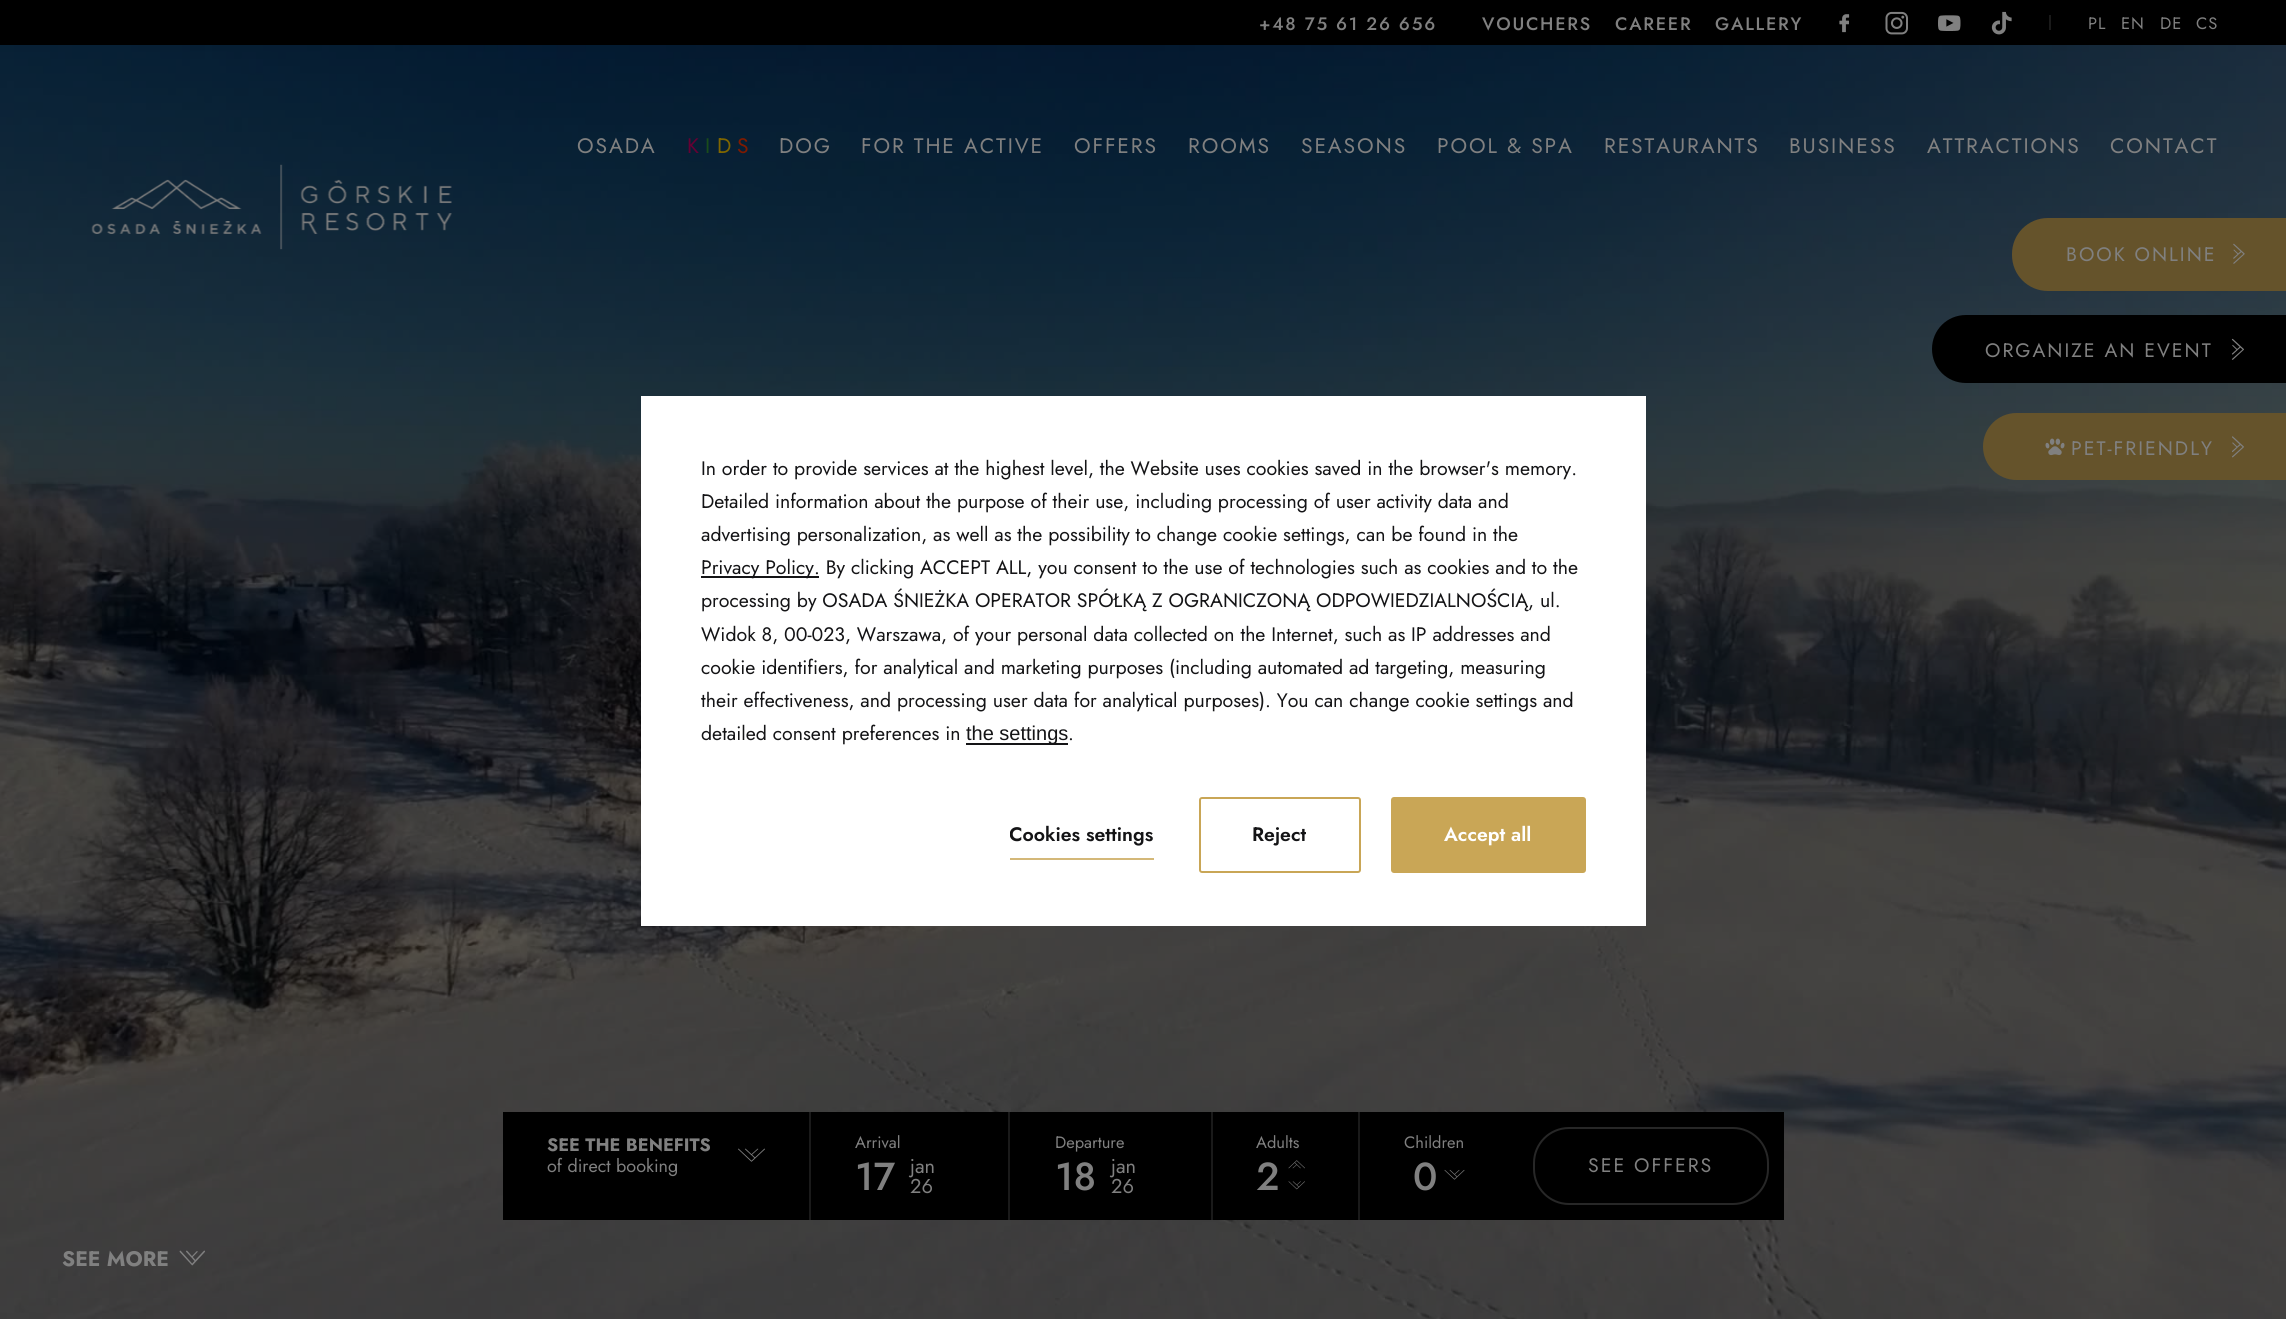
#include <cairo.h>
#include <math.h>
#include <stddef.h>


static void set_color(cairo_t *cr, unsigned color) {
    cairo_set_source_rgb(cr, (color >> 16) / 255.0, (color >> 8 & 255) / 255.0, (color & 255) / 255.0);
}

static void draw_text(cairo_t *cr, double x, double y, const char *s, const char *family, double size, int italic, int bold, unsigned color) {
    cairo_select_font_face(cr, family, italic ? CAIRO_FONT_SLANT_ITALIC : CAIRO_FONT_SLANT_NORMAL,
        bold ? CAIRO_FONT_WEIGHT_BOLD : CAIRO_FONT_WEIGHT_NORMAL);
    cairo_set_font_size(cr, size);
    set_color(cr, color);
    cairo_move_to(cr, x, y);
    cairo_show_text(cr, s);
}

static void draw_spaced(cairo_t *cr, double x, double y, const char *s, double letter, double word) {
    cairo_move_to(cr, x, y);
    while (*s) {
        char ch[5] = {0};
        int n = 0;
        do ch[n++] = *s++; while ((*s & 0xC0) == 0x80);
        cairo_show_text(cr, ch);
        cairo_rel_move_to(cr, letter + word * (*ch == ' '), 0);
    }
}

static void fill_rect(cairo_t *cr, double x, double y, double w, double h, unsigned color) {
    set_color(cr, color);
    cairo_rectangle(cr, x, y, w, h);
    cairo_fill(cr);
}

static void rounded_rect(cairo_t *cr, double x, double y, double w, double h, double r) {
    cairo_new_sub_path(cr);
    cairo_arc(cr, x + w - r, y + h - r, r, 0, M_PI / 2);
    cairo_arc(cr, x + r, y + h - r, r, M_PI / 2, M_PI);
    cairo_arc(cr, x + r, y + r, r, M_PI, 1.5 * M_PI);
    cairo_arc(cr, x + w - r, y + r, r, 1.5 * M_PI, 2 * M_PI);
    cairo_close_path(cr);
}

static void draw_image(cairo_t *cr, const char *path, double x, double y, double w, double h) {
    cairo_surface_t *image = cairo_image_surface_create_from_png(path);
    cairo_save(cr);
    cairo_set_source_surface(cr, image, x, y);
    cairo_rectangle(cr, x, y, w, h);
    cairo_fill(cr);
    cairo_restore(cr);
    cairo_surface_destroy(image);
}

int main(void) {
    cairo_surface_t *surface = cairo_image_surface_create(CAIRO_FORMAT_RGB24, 2286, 1319);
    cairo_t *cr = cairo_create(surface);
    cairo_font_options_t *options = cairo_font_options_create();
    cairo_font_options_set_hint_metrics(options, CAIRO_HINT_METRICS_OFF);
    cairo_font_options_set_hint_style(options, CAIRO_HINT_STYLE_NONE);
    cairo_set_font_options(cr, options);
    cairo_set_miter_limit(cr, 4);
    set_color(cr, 0xFFFFFF);
    cairo_paint(cr);
    fill_rect(cr, 0, 0, 2286, 45, 0x000000);
    cairo_select_font_face(cr, "Jost Medium", CAIRO_FONT_SLANT_NORMAL, CAIRO_FONT_WEIGHT_NORMAL);
    cairo_set_font_size(cr, 18);
    set_color(cr, 0x808080);
    draw_spaced(cr, 1259, 30, "+48 75 61 26 656", 1.75, 0);
    draw_spaced(cr, 1482, 30, "VOUCHERS", 1.75, 0);
    draw_spaced(cr, 1615, 30, "CAREER", 1.75, 0);
    draw_spaced(cr, 1715, 30, "GALLERY", 1.75, 0);
    draw_image(cr, "assets/img1.png", 1839, 14, 11, 19);
    draw_image(cr, "assets/img2.png", 1885, 11, 23, 24);
    draw_image(cr, "assets/img3.png", 1938, 15, 23, 16);
    draw_image(cr, "assets/img4.png", 1991, 11, 21, 24);
    fill_rect(cr, 2049, 15, 2, 15, 0x1A1A1A);
    cairo_select_font_face(cr, "Jost", CAIRO_FONT_SLANT_NORMAL, CAIRO_FONT_WEIGHT_NORMAL);
    cairo_set_font_size(cr, 16.5);
    set_color(cr, 0x808080);
    draw_spaced(cr, 2088, 29, "PL", 1, 0);
    draw_spaced(cr, 2121, 29, "EN", 1, 0);
    draw_spaced(cr, 2160, 29, "DE", 1, 0);
    draw_spaced(cr, 2196, 29, "CS", 1, 0);
    draw_image(cr, "assets/img6.png", 0, 45, 2286, 1274);
    cairo_set_font_size(cr, 21);
    draw_spaced(cr, 577, 153, "OSADA", 1.9, 0);
    draw_text(cr, 687, 153, "K", "Jost", 21, 0, 0, 0x660033);
    draw_text(cr, 705, 153, "I", "Jost", 21, 0, 0, 0x1A4D1A);
    draw_text(cr, 717, 153, "D", "Jost", 21, 0, 0, 0x806600);
    draw_text(cr, 737, 153, "S", "Jost", 21, 0, 0, 0x801A00);
    set_color(cr, 0x808080);
    draw_spaced(cr, 779, 153, "DOG", 1.9, 0);
    draw_spaced(cr, 861, 153, "FOR THE ACTIVE", 1.9, 0);
    draw_spaced(cr, 1074, 153, "OFFERS", 1.9, 0);
    draw_spaced(cr, 1188, 153, "ROOMS", 1.9, 0);
    draw_spaced(cr, 1301, 153, "SEASONS", 1.9, 0);
    draw_spaced(cr, 1437, 153, "POOL & SPA", 1.9, 0);
    draw_spaced(cr, 1604, 153, "RESTAURANTS", 1.9, 0);
    draw_spaced(cr, 1789, 153, "BUSINESS", 1.9, 0);
    draw_spaced(cr, 1927, 153, "ATTRACTIONS", 1.9, 0);
    draw_spaced(cr, 2110, 153, "CONTACT", 1.9, 0);
    draw_image(cr, "assets/img5.png", 91, 164, 361, 86);
    set_color(cr, 0x65532B);
    cairo_new_path(cr);
    cairo_move_to(cr, 2048, 218);
    cairo_line_to(cr, 2286, 218);
    cairo_line_to(cr, 2286, 291);
    cairo_line_to(cr, 2048, 291);
    cairo_curve_to(cr, 2028, 291, 2012, 275, 2012, 255);
    cairo_line_to(cr, 2012, 254);
    cairo_curve_to(cr, 2012, 234, 2028, 218, 2048, 218);
    cairo_close_path(cr);
    cairo_fill(cr);
    cairo_set_font_size(cr, 19.5);
    set_color(cr, 0x808080);
    draw_spaced(cr, 2066, 261, "BOOK ONLINE", 2, 0);
    draw_image(cr, "assets/img7.png", 2233, 243, 12, 21);
    set_color(cr, 0x000000);
    cairo_new_path(cr);
    cairo_move_to(cr, 1966, 315);
    cairo_line_to(cr, 2286, 315);
    cairo_line_to(cr, 2286, 383);
    cairo_line_to(cr, 1966, 383);
    cairo_curve_to(cr, 1947, 383, 1932, 368, 1932, 349);
    cairo_curve_to(cr, 1932, 330, 1947, 315, 1966, 315);
    cairo_close_path(cr);
    cairo_fill(cr);
    set_color(cr, 0x808080);
    draw_spaced(cr, 1985, 357, "ORGANIZE AN EVENT", 2, 0);
    draw_image(cr, "assets/img8.png", 2231, 338, 13, 22);
    set_color(cr, 0x65532B);
    cairo_new_path(cr);
    cairo_move_to(cr, 2016.5, 413);
    cairo_line_to(cr, 2286, 413);
    cairo_line_to(cr, 2286, 480);
    cairo_line_to(cr, 2016.5, 480);
    cairo_curve_to(cr, 1998, 480, 1983, 465, 1983, 446.5);
    cairo_curve_to(cr, 1983, 428, 1998, 413, 2016.5, 413);
    cairo_close_path(cr);
    cairo_fill(cr);
    draw_image(cr, "assets/img9.png", 2045, 438, 20, 18);
    set_color(cr, 0x808080);
    draw_spaced(cr, 2071, 455, "PET-FRIENDLY", 2, 0);
    draw_image(cr, "assets/img10.png", 2232, 436, 12, 22);
    fill_rect(cr, 503, 1112, 1281, 108, 0x000000);
    draw_text(cr, 547, 1151, "SEE THE BENEFITS", "Jost", 18, 0, 1, 0x808080);
    draw_text(cr, 547, 1172, "of direct booking", "Jost", 18, 0, 0, 0x808080);
    draw_image(cr, "assets/img11.png", 738, 1148, 27, 14);
    fill_rect(cr, 809, 1112, 2, 108, 0x1A1A1A);
    draw_text(cr, 855, 1148, "Arrival", "Jost", 16.5, 0, 0, 0x808080);
    fill_rect(cr, 1008, 1112, 2, 108, 0x1A1A1A);
    draw_text(cr, 855, 1190, "17", "Jost Medium", 39, 0, 0, 0x808080);
    draw_text(cr, 910, 1173, "jan", "Jost", 20, 0, 0, 0x808080);
    draw_text(cr, 910, 1193, "26", "Jost", 20, 0, 0, 0x808080);
    draw_text(cr, 1055, 1148, "Departure", "Jost", 16.5, 0, 0, 0x808080);
    fill_rect(cr, 1211, 1112, 2, 108, 0x1A1A1A);
    draw_text(cr, 1055, 1190, "18", "Jost Medium", 39, 0, 0, 0x808080);
    draw_text(cr, 1111, 1173, "jan", "Jost", 20, 0, 0, 0x808080);
    draw_text(cr, 1111, 1193, "26", "Jost", 20, 0, 0, 0x808080);
    draw_text(cr, 1256, 1148, "Adults", "Jost", 16.5, 0, 0, 0x808080);
    fill_rect(cr, 1358, 1112, 2, 108, 0x1A1A1A);
    draw_text(cr, 1256, 1190, "2", "Jost Medium", 39, 0, 0, 0x808080);
    draw_image(cr, "assets/img12.png", 1288, 1160, 17, 9);
    draw_image(cr, "assets/img13.png", 1288, 1181, 17, 9);
    draw_text(cr, 1404, 1148, "Children", "Jost", 16.5, 0, 0, 0x808080);
    draw_text(cr, 1413, 1190, "0", "Jost Medium", 39, 0, 0, 0x808080);
    draw_image(cr, "assets/img14.png", 1444, 1169, 21, 11);
    rounded_rect(cr, 1534, 1128, 234, 76, 35);
    set_color(cr, 0x272727);
    cairo_stroke(cr);
    cairo_select_font_face(cr, "Jost", CAIRO_FONT_SLANT_NORMAL, CAIRO_FONT_WEIGHT_NORMAL);
    cairo_set_font_size(cr, 19.5);
    set_color(cr, 0x808080);
    draw_spaced(cr, 1588, 1172, "SEE OFFERS", 2, 0);
    draw_text(cr, 62, 1266, "SEE MORE", "Jost", 21, 0, 1, 0x808080);
    draw_image(cr, "assets/img15.png", 179, 1250, 26, 16);
    fill_rect(cr, 641, 396, 1005, 530, 0xFFFFFF);
    draw_text(cr, 701, 475, "In order to provide services at the highest level, the Website uses cookies saved in the browser's memory.", "Jost", 19.5, 0, 0, 0x141416);
    draw_text(cr, 701, 508, "Detailed information about the purpose of their use, including processing of user activity data and", "Jost", 19.5, 0, 0, 0x141416);
    draw_text(cr, 701, 541, "advertising personalization, as well as the possibility to change cookie settings, can be found in the", "Jost", 19.5, 0, 0, 0x141416);
    fill_rect(cr, 701, 576, 118, 2, 0x141416);
    draw_text(cr, 701, 574, "Privacy Policy. By clicking ACCEPT ALL, you consent to the use of technologies such as cookies and to the", "Jost", 19.5, 0, 0, 0x141416);
    draw_text(cr, 701, 607, "processing by OSADA ŚNIEŻKA OPERATOR SPÓŁKĄ Z OGRANICZONĄ ODPOWIEDZIALNOŚCIĄ, ul.", "Jost", 19.5, 0, 0, 0x141416);
    draw_text(cr, 701, 641, "Widok 8, 00-023, Warszawa, of your personal data collected on the Internet, such as IP addresses and", "Jost", 19.5, 0, 0, 0x141416);
    draw_text(cr, 701, 674, "cookie identifiers, for analytical and marketing purposes (including automated ad targeting, measuring", "Jost", 19.5, 0, 0, 0x141416);
    draw_text(cr, 701, 707, "their effectiveness, and processing user data for analytical purposes). You can change cookie settings and", "Jost", 19.5, 0, 0, 0x141416);
    draw_text(cr, 701, 740, "detailed consent preferences in", "Jost", 19.5, 0, 0, 0x141416);
    fill_rect(cr, 966, 743, 102, 2, 0x141416);
    draw_text(cr, 966, 740, "the settings", "Liberation Sans", 20, 0, 0, 0x141416);
    draw_text(cr, 1068, 740, ".", "Jost", 19.5, 0, 0, 0x141416);
    cairo_save(cr);
    cairo_rectangle(cr, 1010, 821, 144, 39);
    cairo_clip(cr);
    draw_text(cr, 1009, 841, "Cookies settings", "Jost SemiBold", 19.5, 0, 0, 0x141416);
    cairo_restore(cr);
    fill_rect(cr, 1010, 858, 144, 2, 0xD4B878);
    rounded_rect(cr, 1200, 798, 160, 74, 2);
    set_color(cr, 0xC9A656);
    cairo_stroke(cr);
    draw_text(cr, 1252, 841, "Reject", "Jost SemiBold", 19.5, 0, 0, 0x141416);
    rounded_rect(cr, 1392, 798, 193, 74, 2);
    set_color(cr, 0xC9A656);
    cairo_stroke(cr);
    fill_rect(cr, 1393, 799, 191, 72, 0xC9A656);
    draw_text(cr, 1444, 841, "Accept all", "Jost SemiBold", 19.5, 0, 0, 0xFFFFFF);
    cairo_surface_write_to_png(surface, "output.png");
    cairo_font_options_destroy(options);
    cairo_destroy(cr);
    cairo_surface_destroy(surface);
    return 0;
}
